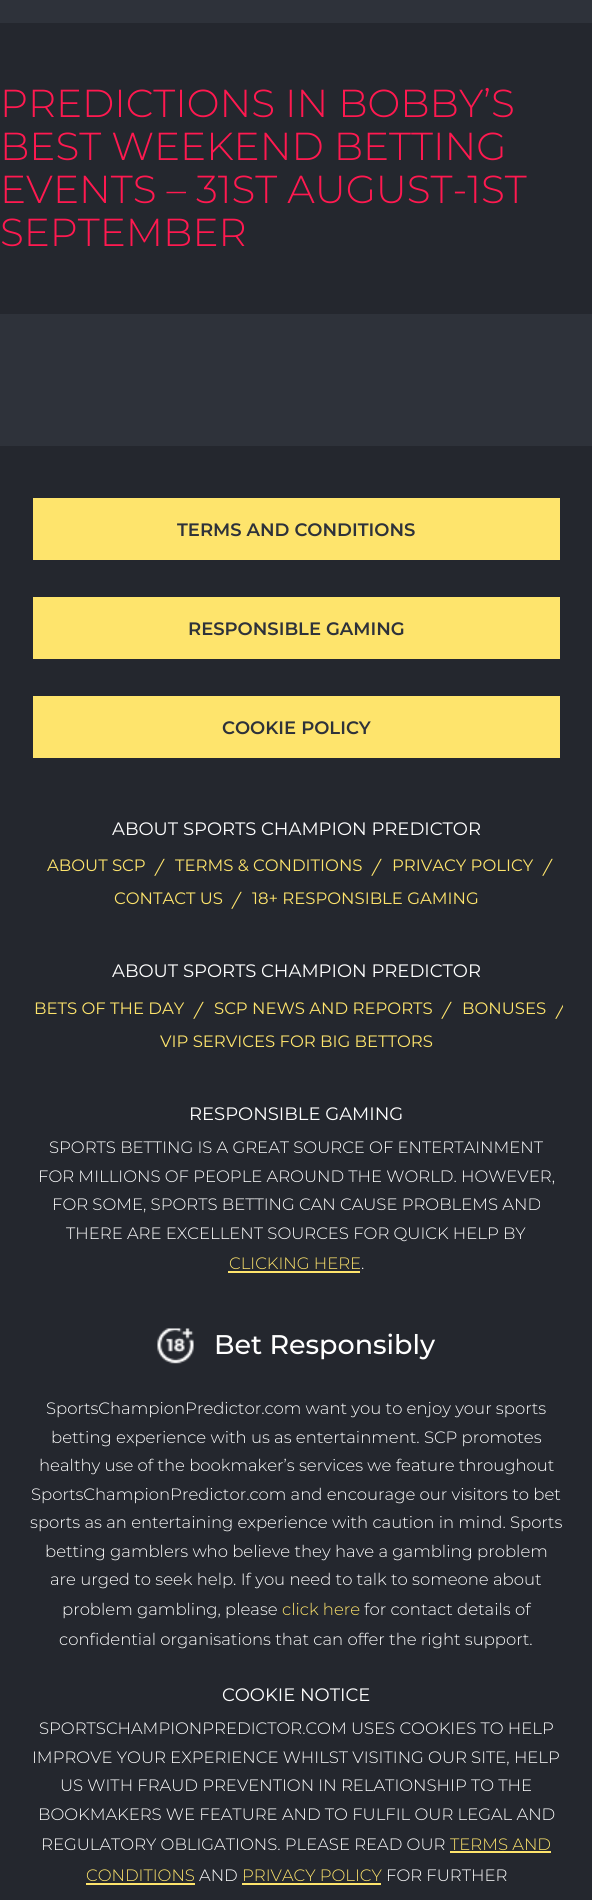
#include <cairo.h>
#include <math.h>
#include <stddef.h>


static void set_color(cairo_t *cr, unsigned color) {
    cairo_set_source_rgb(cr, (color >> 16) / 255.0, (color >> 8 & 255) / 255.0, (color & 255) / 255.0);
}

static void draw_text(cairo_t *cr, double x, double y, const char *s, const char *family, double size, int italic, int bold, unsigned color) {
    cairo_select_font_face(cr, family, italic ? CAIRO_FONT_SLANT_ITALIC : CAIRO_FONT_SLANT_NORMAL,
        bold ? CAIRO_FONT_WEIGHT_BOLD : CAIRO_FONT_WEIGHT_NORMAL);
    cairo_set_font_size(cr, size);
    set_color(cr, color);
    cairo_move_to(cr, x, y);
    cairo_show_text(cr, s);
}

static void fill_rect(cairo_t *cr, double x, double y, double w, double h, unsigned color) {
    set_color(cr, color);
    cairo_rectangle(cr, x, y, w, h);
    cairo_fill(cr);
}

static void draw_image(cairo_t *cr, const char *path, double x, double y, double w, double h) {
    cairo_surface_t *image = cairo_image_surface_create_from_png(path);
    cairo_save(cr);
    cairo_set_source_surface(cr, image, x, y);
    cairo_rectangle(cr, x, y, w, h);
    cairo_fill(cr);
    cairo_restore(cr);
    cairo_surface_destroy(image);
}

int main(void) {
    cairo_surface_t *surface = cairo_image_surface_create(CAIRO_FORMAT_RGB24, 592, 1900);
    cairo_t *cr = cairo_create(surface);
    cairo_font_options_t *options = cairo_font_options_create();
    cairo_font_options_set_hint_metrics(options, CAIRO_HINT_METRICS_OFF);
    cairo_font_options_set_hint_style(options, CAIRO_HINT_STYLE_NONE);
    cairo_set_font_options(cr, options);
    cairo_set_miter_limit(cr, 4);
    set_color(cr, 0x24272E);
    cairo_paint(cr);
    fill_rect(cr, 0, 0, 592, 23, 0x2E323A);
    draw_text(cr, 0, 117, "PREDICTIONS IN BOBBY’S", "Montserrat Light", 39, 0, 0, 0xFF1950);
    draw_text(cr, 0, 160, "BEST WEEKEND BETTING", "Montserrat Light", 39, 0, 0, 0xFF1950);
    draw_text(cr, 0, 203, "EVENTS – 31ST AUGUST-1ST", "Montserrat Light", 39, 0, 0, 0xFF1950);
    draw_text(cr, 0, 246, "SEPTEMBER", "Montserrat Light", 39, 0, 0, 0xFF1950);
    fill_rect(cr, 0, 314, 592, 132, 0x2E323A);
    fill_rect(cr, 33, 498, 527, 62, 0xFEE46C);
    draw_text(cr, 177, 536, "TERMS AND CONDITIONS", "Montserrat SemiBold", 18, 0, 0, 0x2E323A);
    fill_rect(cr, 33, 597, 527, 62, 0xFEE46C);
    draw_text(cr, 188, 635, "RESPONSIBLE GAMING", "Montserrat SemiBold", 18, 0, 0, 0x2E323A);
    fill_rect(cr, 33, 696, 527, 62, 0xFEE46C);
    draw_text(cr, 222, 734, "COOKIE POLICY", "Montserrat SemiBold", 18, 0, 0, 0x2E323A);
    draw_text(cr, 112, 835, "ABOUT SPORTS CHAMPION PREDICTOR", "Montserrat", 18, 0, 0, 0xFFFFFF);
    draw_text(cr, 47, 871, "ABOUT SCP", "Montserrat", 16.5, 0, 0, 0xFEE46C);
    draw_text(cr, 156, 874, "/", "Montserrat", 18, 1, 0, 0xFEE46C);
    draw_text(cr, 175, 871, "TERMS & CONDITIONS", "Montserrat", 16.5, 0, 0, 0xFEE46C);
    draw_text(cr, 373, 874, "/", "Montserrat", 18, 1, 0, 0xFEE46C);
    draw_text(cr, 392, 871, "PRIVACY POLICY", "Montserrat", 16.5, 0, 0, 0xFEE46C);
    draw_text(cr, 544, 874, "/", "Montserrat", 18, 1, 0, 0xFEE46C);
    draw_text(cr, 114, 904, "CONTACT US", "Montserrat", 16.5, 0, 0, 0xFEE46C);
    draw_text(cr, 233, 907, "/", "Montserrat", 18, 1, 0, 0xFEE46C);
    draw_text(cr, 252, 904, "18+ RESPONSIBLE GAMING", "Montserrat", 16.5, 0, 0, 0xFEE46C);
    draw_text(cr, 112, 977, "ABOUT SPORTS CHAMPION PREDICTOR", "Montserrat", 18, 0, 0, 0xFFFFFF);
    draw_text(cr, 34, 1014, "BETS OF THE DAY", "Montserrat", 16.5, 0, 0, 0xFEE46C);
    draw_text(cr, 195, 1017, "/", "Montserrat", 18, 1, 0, 0xFEE46C);
    draw_text(cr, 214, 1014, "SCP NEWS AND REPORTS", "Montserrat", 16.5, 0, 0, 0xFEE46C);
    draw_text(cr, 443, 1017, "/", "Montserrat", 18, 1, 0, 0xFEE46C);
    draw_text(cr, 462, 1014, "BONUSES", "Montserrat", 16.5, 0, 0, 0xFEE46C);
    cairo_save(cr);
    cairo_rectangle(cr, 30, 992, 533, 66);
    cairo_clip(cr);
    draw_text(cr, 557, 1017, "/", "Montserrat", 18, 1, 0, 0xFEE46C);
    cairo_restore(cr);
    draw_text(cr, 160, 1047, "VIP SERVICES FOR BIG BETTORS", "Montserrat", 16.5, 0, 0, 0xFEE46C);
    draw_text(cr, 189, 1120, "RESPONSIBLE GAMING", "Montserrat", 18, 0, 0, 0xFFFFFF);
    draw_text(cr, 49, 1153, "SPORTS BETTING IS A GREAT SOURCE OF ENTERTAINMENT", "Montserrat Light", 16.5, 0, 0, 0xFFFFFF);
    draw_text(cr, 38, 1182, "FOR MILLIONS OF PEOPLE AROUND THE WORLD. HOWEVER,", "Montserrat Light", 16.5, 0, 0, 0xFFFFFF);
    draw_text(cr, 52, 1210, "FOR SOME, SPORTS BETTING CAN CAUSE PROBLEMS AND", "Montserrat Light", 16.5, 0, 0, 0xFFFFFF);
    draw_text(cr, 66, 1239, "THERE ARE EXCELLENT SOURCES FOR QUICK HELP BY", "Montserrat Light", 16.5, 0, 0, 0xFFFFFF);
    draw_text(cr, 229, 1269, "CLICKING HERE", "Montserrat Light", 16.5, 0, 0, 0xFEE46C);
    fill_rect(cr, 228, 1271, 132, 2, 0xFEE46C);
    draw_text(cr, 361, 1269, ".", "Montserrat Light", 16.5, 0, 0, 0xFFFFFF);
    draw_image(cr, "assets/img1.png", 157, 1328, 37, 36);
    draw_text(cr, 214, 1354, "Bet Responsibly", "Montserrat Medium", 27, 0, 0, 0xFFFFFF);
    draw_text(cr, 46, 1414, "SportsChampionPredictor.com want you to enjoy your sports", "Montserrat Light", 16.5, 0, 0, 0xFFFFFF);
    draw_text(cr, 51, 1443, "betting experience with us as entertainment. SCP promotes", "Montserrat Light", 16.5, 0, 0, 0xFFFFFF);
    draw_text(cr, 39, 1471, "healthy use of the bookmaker’s services we feature throughout", "Montserrat Light", 16.5, 0, 0, 0xFFFFFF);
    draw_text(cr, 31, 1500, "SportsChampionPredictor.com and encourage our visitors to bet", "Montserrat Light", 16.5, 0, 0, 0xFFFFFF);
    draw_text(cr, 30, 1528, "sports as an entertaining experience with caution in mind. Sports", "Montserrat Light", 16.5, 0, 0, 0xFFFFFF);
    draw_text(cr, 45, 1557, "betting gamblers who believe they have a gambling problem", "Montserrat Light", 16.5, 0, 0, 0xFFFFFF);
    draw_text(cr, 50, 1585, "are urged to seek help. If you need to talk to someone about", "Montserrat Light", 16.5, 0, 0, 0xFFFFFF);
    draw_text(cr, 62, 1615, "problem gambling, please", "Montserrat Light", 16.5, 0, 0, 0xFFFFFF);
    draw_text(cr, 282, 1615, "click here", "Montserrat Light", 16.5, 0, 0, 0xFEE46C);
    draw_text(cr, 364, 1615, "for contact details of", "Montserrat Light", 16.5, 0, 0, 0xFFFFFF);
    draw_text(cr, 59, 1645, "confidential organisations that can offer the right support.", "Montserrat Light", 16.5, 0, 0, 0xFFFFFF);
    draw_text(cr, 222, 1701, "COOKIE NOTICE", "Montserrat", 18, 0, 0, 0xFFFFFF);
    draw_text(cr, 39, 1734, "SPORTSCHAMPIONPREDICTOR.COM USES COOKIES TO HELP", "Montserrat Light", 16.5, 0, 0, 0xFFFFFF);
    draw_text(cr, 32, 1763, "IMPROVE YOUR EXPERIENCE WHILST VISITING OUR SITE, HELP", "Montserrat Light", 16.5, 0, 0, 0xFFFFFF);
    draw_text(cr, 60, 1791, "US WITH FRAUD PREVENTION IN RELATIONSHIP TO THE", "Montserrat Light", 16.5, 0, 0, 0xFFFFFF);
    draw_text(cr, 38, 1820, "BOOKMAKERS WE FEATURE AND TO FULFIL OUR LEGAL AND", "Montserrat Light", 16.5, 0, 0, 0xFFFFFF);
    draw_text(cr, 41, 1850, "REGULATORY OBLIGATIONS. PLEASE READ OUR", "Montserrat Light", 16.5, 0, 0, 0xFFFFFF);
    draw_text(cr, 450, 1850, "TERMS AND", "Montserrat Light", 16.5, 0, 0, 0xFEE46C);
    fill_rect(cr, 450, 1851, 101, 2, 0xFEE46C);
    draw_text(cr, 86, 1881, "CONDITIONS", "Montserrat Light", 16.5, 0, 0, 0xFEE46C);
    fill_rect(cr, 86, 1883, 109, 2, 0xFEE46C);
    draw_text(cr, 199, 1881, "AND", "Montserrat Light", 16.5, 0, 0, 0xFFFFFF);
    draw_text(cr, 242, 1881, "PRIVACY POLICY", "Montserrat Light", 16.5, 0, 0, 0xFEE46C);
    fill_rect(cr, 242, 1883, 139, 2, 0xFEE46C);
    draw_text(cr, 386, 1881, "FOR FURTHER", "Montserrat Light", 16.5, 0, 0, 0xFFFFFF);
    cairo_surface_write_to_png(surface, "output.png");
    cairo_font_options_destroy(options);
    cairo_destroy(cr);
    cairo_surface_destroy(surface);
    return 0;
}
